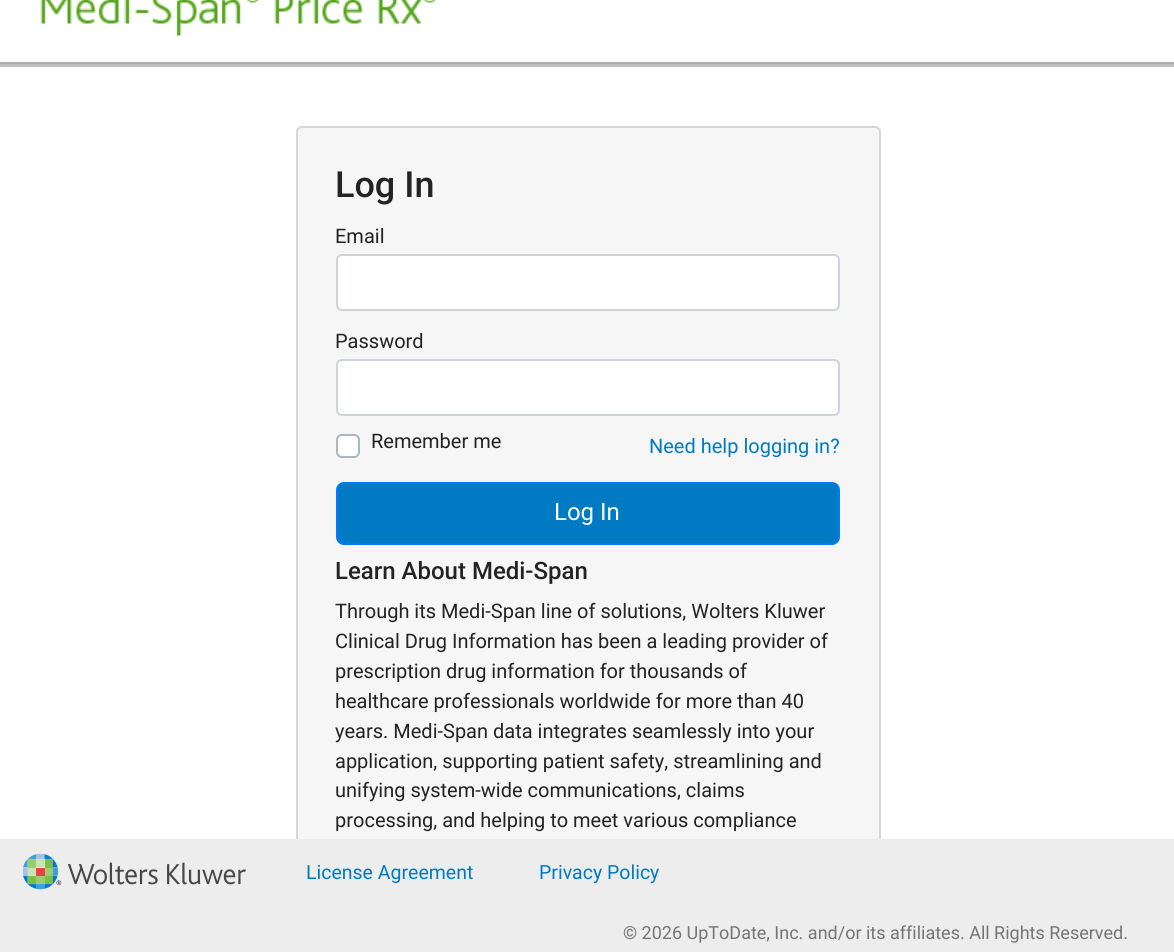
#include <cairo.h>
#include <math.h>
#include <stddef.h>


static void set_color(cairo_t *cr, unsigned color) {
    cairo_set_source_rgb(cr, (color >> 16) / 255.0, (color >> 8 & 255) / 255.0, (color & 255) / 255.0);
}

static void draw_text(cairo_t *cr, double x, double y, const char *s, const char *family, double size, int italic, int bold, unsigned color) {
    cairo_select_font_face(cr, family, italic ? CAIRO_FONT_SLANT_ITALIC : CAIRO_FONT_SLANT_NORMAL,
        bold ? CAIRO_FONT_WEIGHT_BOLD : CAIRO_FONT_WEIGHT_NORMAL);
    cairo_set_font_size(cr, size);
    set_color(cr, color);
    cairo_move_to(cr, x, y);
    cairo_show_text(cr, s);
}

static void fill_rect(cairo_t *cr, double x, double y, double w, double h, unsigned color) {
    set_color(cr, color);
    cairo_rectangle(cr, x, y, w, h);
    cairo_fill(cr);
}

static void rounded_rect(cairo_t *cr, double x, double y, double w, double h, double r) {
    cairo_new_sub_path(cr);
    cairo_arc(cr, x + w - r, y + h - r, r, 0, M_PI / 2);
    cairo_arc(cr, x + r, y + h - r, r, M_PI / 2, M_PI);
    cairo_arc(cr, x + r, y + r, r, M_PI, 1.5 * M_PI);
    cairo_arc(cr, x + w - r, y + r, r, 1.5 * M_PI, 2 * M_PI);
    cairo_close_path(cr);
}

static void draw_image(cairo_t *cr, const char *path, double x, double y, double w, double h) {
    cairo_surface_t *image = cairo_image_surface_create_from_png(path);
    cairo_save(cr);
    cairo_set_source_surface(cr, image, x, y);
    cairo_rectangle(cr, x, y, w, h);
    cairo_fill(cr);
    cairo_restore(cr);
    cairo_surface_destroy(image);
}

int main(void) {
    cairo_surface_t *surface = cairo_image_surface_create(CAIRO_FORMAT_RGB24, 1174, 952);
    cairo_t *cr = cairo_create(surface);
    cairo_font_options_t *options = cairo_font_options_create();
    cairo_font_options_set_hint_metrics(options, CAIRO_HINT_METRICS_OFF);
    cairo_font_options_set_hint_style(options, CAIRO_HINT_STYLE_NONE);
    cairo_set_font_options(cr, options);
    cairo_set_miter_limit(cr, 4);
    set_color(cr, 0xFFFFFF);
    cairo_paint(cr);
    draw_image(cr, "assets/img1.png", 40, 0, 396, 36);
    fill_rect(cr, 0, 64, 1174, 3, 0xBFBFBF);
    fill_rect(cr, 0, 62, 1174, 2, 0xACACAC);
    set_color(cr, 0xF6F6F6);
    rounded_rect(cr, 297, 127, 583, 799, 5);
    cairo_fill_preserve(cr);
    set_color(cr, 0xD7D7D7);
    cairo_stroke(cr);
    draw_text(cr, 335, 197, "Log In", "Roboto Medium", 36, 0, 0, 0x232323);
    draw_text(cr, 335, 243, "Email", "Roboto", 20, 0, 0, 0x232323);
    set_color(cr, 0xFFFFFF);
    rounded_rect(cr, 337, 255, 502, 55, 5);
    cairo_fill_preserve(cr);
    set_color(cr, 0xCED4DA);
    cairo_stroke(cr);
    draw_text(cr, 335, 348, "Password", "Roboto", 20, 0, 0, 0x232323);
    set_color(cr, 0xFFFFFF);
    rounded_rect(cr, 337, 360, 502, 55, 5);
    cairo_fill_preserve(cr);
    set_color(cr, 0xCED4DA);
    cairo_stroke(cr);
    set_color(cr, 0xFFFFFF);
    rounded_rect(cr, 337, 435, 22, 22, 5);
    cairo_fill_preserve(cr);
    set_color(cr, 0xADB5BD);
    cairo_stroke(cr);
    draw_text(cr, 371, 448, "Remember me", "Roboto", 20, 0, 0, 0x232323);
    draw_text(cr, 649, 453, "Need help logging in?", "Roboto", 20, 0, 0, 0x007AC3);
    rounded_rect(cr, 337, 483, 502, 61, 7);
    cairo_fill_preserve(cr);
    set_color(cr, 0x007BFF);
    cairo_stroke(cr);
    draw_text(cr, 554, 520, "Log In", "Roboto", 24, 0, 0, 0xFFFFFF);
    draw_text(cr, 335, 579, "Learn About Medi-Span", "Roboto Medium", 24, 0, 0, 0x232323);
    draw_text(cr, 335, 618, "Through its Medi-Span line of solutions, Wolters Kluwer", "Roboto", 20, 0, 0, 0x232323);
    draw_text(cr, 335, 648, "Clinical Drug Information has been a leading provider of", "Roboto", 20, 0, 0, 0x232323);
    draw_text(cr, 335, 678, "prescription drug information for thousands of", "Roboto", 20, 0, 0, 0x232323);
    draw_text(cr, 335, 708, "healthcare professionals worldwide for more than 40", "Roboto", 20, 0, 0, 0x232323);
    draw_text(cr, 335, 738, "years. Medi-Span data integrates seamlessly into your", "Roboto", 20, 0, 0, 0x232323);
    draw_text(cr, 335, 768, "application, supporting patient safety, streamlining and", "Roboto", 20, 0, 0, 0x232323);
    draw_text(cr, 335, 797, "unifying system-wide communications, claims", "Roboto", 20, 0, 0, 0x232323);
    draw_text(cr, 335, 827, "processing, and helping to meet various compliance", "Roboto", 20, 0, 0, 0x232323);
    fill_rect(cr, 0, 839, 1174, 113, 0xEDEDED);
    draw_image(cr, "assets/img2.png", 23, 853, 223, 37);
    draw_text(cr, 306, 879, "License Agreement", "Roboto", 19.5, 0, 0, 0x007AC3);
    draw_text(cr, 539, 879, "Privacy Policy", "Roboto", 19.5, 0, 0, 0x007AC3);
    draw_text(cr, 623, 939, "© 2026 UpToDate, Inc. and/or its affiliates. All Rights Reserved.", "Roboto", 18, 0, 0, 0x757575);
    cairo_surface_write_to_png(surface, "output.png");
    cairo_font_options_destroy(options);
    cairo_destroy(cr);
    cairo_surface_destroy(surface);
    return 0;
}
